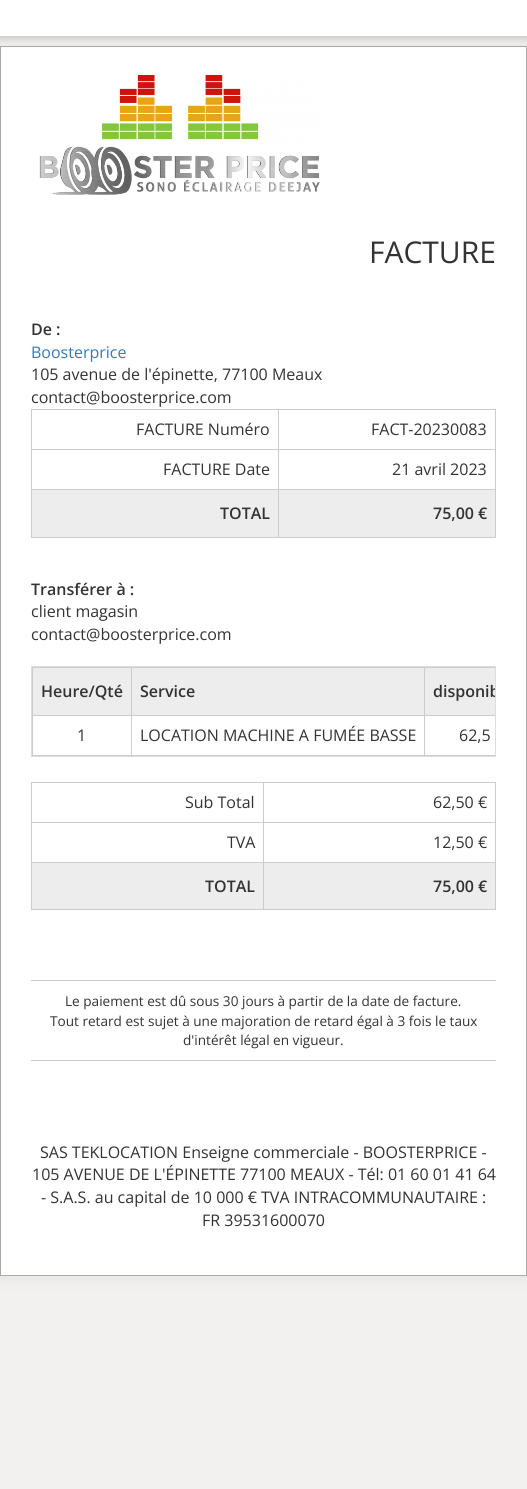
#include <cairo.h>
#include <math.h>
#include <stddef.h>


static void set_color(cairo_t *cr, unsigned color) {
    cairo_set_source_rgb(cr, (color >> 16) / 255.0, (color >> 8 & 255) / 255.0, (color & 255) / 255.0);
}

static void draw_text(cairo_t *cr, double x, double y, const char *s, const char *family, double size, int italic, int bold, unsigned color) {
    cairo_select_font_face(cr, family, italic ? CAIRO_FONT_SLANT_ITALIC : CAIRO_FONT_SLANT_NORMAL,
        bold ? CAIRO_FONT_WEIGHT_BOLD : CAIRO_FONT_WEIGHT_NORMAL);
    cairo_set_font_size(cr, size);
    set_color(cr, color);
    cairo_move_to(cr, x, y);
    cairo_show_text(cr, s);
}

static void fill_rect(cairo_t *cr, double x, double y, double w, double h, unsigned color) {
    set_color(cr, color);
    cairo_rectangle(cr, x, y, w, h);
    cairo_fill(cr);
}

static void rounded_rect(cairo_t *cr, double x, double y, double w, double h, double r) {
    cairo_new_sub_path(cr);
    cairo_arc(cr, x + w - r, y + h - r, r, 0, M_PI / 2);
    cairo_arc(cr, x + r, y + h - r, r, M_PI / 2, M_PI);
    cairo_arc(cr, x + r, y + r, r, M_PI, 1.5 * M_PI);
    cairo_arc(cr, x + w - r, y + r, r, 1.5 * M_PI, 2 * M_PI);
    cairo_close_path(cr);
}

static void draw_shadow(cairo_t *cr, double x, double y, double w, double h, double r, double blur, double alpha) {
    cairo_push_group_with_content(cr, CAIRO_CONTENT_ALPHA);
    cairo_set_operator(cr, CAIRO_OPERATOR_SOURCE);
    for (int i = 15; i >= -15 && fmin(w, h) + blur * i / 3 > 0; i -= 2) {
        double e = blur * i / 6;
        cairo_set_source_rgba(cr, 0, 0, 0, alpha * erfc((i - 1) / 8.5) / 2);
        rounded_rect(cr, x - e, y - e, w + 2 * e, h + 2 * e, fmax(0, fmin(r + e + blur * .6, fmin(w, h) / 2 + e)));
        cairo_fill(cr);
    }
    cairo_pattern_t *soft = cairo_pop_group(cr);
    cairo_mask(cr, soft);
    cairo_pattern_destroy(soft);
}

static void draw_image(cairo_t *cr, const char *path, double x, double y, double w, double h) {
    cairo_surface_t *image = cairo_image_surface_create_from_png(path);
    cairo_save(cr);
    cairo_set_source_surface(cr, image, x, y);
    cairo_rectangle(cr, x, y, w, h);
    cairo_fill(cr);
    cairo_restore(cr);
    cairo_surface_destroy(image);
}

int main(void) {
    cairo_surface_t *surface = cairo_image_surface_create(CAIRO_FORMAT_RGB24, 527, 1489);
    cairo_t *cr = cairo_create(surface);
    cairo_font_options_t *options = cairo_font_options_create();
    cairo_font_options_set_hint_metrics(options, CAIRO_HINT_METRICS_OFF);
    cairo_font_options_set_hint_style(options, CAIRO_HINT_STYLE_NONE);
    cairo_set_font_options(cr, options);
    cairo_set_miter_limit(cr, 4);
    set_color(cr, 0xF2F1EF);
    cairo_paint(cr);
    set_color(cr, 0x000000);
    draw_shadow(cr, -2, -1, 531, 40, 0, 2.5, 0.15);
    fill_rect(cr, 0, 0, 527, 36, 0xFFFFFF);
    set_color(cr, 0x000000);
    draw_shadow(cr, 0, 46, 527, 1230, 0, 10, 0.07);
    set_color(cr, 0xFFFFFF);
    cairo_rectangle(cr, 0.5, 46.5, 526, 1229);
    cairo_fill_preserve(cr);
    set_color(cr, 0xAAAAAA);
    cairo_set_line_width(cr, 1);
    cairo_stroke(cr);
    draw_image(cr, "assets/img1.png", 39, 74, 281, 121);
    draw_text(cr, 369, 263, "FACTURE", "Open Sans", 30, 0, 0, 0x333333);
    draw_text(cr, 31, 335, "De :", "Open Sans SemiBold", 16, 0, 0, 0x333333);
    draw_text(cr, 31, 358, "Boosterprice", "Open Sans", 16, 0, 0, 0x337AB7);
    draw_text(cr, 31, 380, "105 avenue de l'épinette, 77100 Meaux", "Open Sans", 16, 0, 0, 0x333333);
    draw_text(cr, 31, 403, "contact@boosterprice.com", "Open Sans", 16, 0, 0, 0x333333);
    fill_rect(cr, 31, 409, 465, 1, 0xCCCCCC);
    fill_rect(cr, 495, 409, 1, 129, 0xCCCCCC);
    fill_rect(cr, 31, 537, 465, 1, 0xCCCCCC);
    fill_rect(cr, 31, 409, 1, 129, 0xCCCCCC);
    draw_text(cr, 136, 435, "FACTURE Numéro", "Open Sans", 16, 0, 0, 0x333333);
    fill_rect(cr, 278, 449, 218, 1, 0xCCCCCC);
    fill_rect(cr, 278, 489, 218, 1, 0xCCCCCC);
    fill_rect(cr, 278, 489, 1, 49, 0xCCCCCC);
    fill_rect(cr, 31, 489, 248, 1, 0xCCCCCC);
    fill_rect(cr, 278, 449, 1, 41, 0xCCCCCC);
    fill_rect(cr, 31, 449, 248, 1, 0xCCCCCC);
    fill_rect(cr, 278, 409, 1, 41, 0xCCCCCC);
    draw_text(cr, 371, 435, "FACT-20230083", "Open Sans", 16, 0, 0, 0x333333);
    draw_text(cr, 163, 475, "FACTURE Date", "Open Sans", 16, 0, 0, 0x333333);
    draw_text(cr, 392, 475, "21 avril 2023", "Open Sans", 16, 0, 0, 0x333333);
    fill_rect(cr, 32, 490, 246, 47, 0xEDEDED);
    draw_text(cr, 220, 519, "TOTAL", "Open Sans SemiBold", 16, 0, 0, 0x333333);
    fill_rect(cr, 279, 490, 216, 47, 0xEDEDED);
    draw_text(cr, 433, 519, "75,00 €", "Open Sans SemiBold", 16, 0, 0, 0x333333);
    draw_text(cr, 31, 595, "Transférer à :", "Open Sans SemiBold", 16, 0, 0, 0x333333);
    draw_text(cr, 31, 617, "client magasin", "Open Sans", 16, 0, 0, 0x333333);
    draw_text(cr, 31, 640, "contact@boosterprice.com", "Open Sans", 16, 0, 0, 0x333333);
    cairo_rectangle(cr, 31.5, 666.5, 464, 90);
    set_color(cr, 0xDDDDDD);
    cairo_stroke(cr);
    fill_rect(cr, 32, 667, 463, 1, 0xCCCCCC);
    fill_rect(cr, 32, 755, 463, 1, 0xCCCCCC);
    fill_rect(cr, 32, 667, 1, 89, 0xCCCCCC);
    fill_rect(cr, 33, 668, 98, 47, 0xEDEDED);
    draw_text(cr, 41, 697, "Heure/Qté", "Open Sans SemiBold", 16, 0, 0, 0x333333);
    fill_rect(cr, 132, 668, 292, 47, 0xEDEDED);
    fill_rect(cr, 424, 715, 71, 1, 0xCCCCCC);
    fill_rect(cr, 424, 715, 1, 41, 0xCCCCCC);
    fill_rect(cr, 131, 715, 294, 1, 0xCCCCCC);
    fill_rect(cr, 131, 715, 1, 41, 0xCCCCCC);
    fill_rect(cr, 32, 715, 100, 1, 0xCCCCCC);
    fill_rect(cr, 131, 667, 1, 49, 0xCCCCCC);
    draw_text(cr, 140, 697, "Service", "Open Sans SemiBold", 16, 0, 0, 0x333333);
    fill_rect(cr, 425, 668, 70, 47, 0xEDEDED);
    fill_rect(cr, 424, 667, 1, 49, 0xCCCCCC);
    cairo_save(cr);
    cairo_rectangle(cr, 32, 667, 463, 89);
    cairo_clip(cr);
    draw_text(cr, 433, 697, "disponib", "Open Sans SemiBold", 16, 0, 0, 0x333333);
    cairo_restore(cr);
    draw_text(cr, 77, 741, "1", "Open Sans", 16, 0, 0, 0x333333);
    draw_text(cr, 140, 741, "LOCATION MACHINE A FUMÉE BASSE", "Open Sans", 16, 0, 0, 0x333333);
    draw_text(cr, 459, 741, "62,5", "Open Sans", 16, 0, 0, 0x333333);
    fill_rect(cr, 31, 782, 465, 1, 0xCCCCCC);
    fill_rect(cr, 495, 782, 1, 128, 0xCCCCCC);
    fill_rect(cr, 31, 909, 465, 1, 0xCCCCCC);
    fill_rect(cr, 31, 782, 1, 128, 0xCCCCCC);
    draw_text(cr, 185, 808, "Sub Total", "Open Sans", 16, 0, 0, 0x333333);
    fill_rect(cr, 263, 822, 233, 1, 0xCCCCCC);
    fill_rect(cr, 263, 862, 233, 1, 0xCCCCCC);
    fill_rect(cr, 263, 862, 1, 48, 0xCCCCCC);
    fill_rect(cr, 31, 862, 233, 1, 0xCCCCCC);
    fill_rect(cr, 263, 822, 1, 41, 0xCCCCCC);
    fill_rect(cr, 31, 822, 233, 1, 0xCCCCCC);
    fill_rect(cr, 263, 782, 1, 41, 0xCCCCCC);
    draw_text(cr, 433, 808, "62,50 €", "Open Sans", 16, 0, 0, 0x333333);
    draw_text(cr, 227, 848, "TVA", "Open Sans", 16, 0, 0, 0x333333);
    draw_text(cr, 433, 848, "12,50 €", "Open Sans", 16, 0, 0, 0x333333);
    fill_rect(cr, 32, 863, 231, 46, 0xEDEDED);
    draw_text(cr, 205, 892, "TOTAL", "Open Sans SemiBold", 16, 0, 0, 0x333333);
    fill_rect(cr, 264, 863, 231, 46, 0xEDEDED);
    draw_text(cr, 433, 892, "75,00 €", "Open Sans SemiBold", 16, 0, 0, 0x333333);
    fill_rect(cr, 31, 980, 465, 1, 0xCCCCCC);
    fill_rect(cr, 31, 1060, 465, 1, 0xCCCCCC);
    draw_text(cr, 65, 1006, "Le paiement est dû sous 30 jours à partir de la date de facture.", "Open Sans", 13.6, 0, 0, 0x333333);
    draw_text(cr, 50, 1026, "Tout retard est sujet à une majoration de retard égal à 3 fois le taux", "Open Sans", 13.6, 0, 0, 0x333333);
    draw_text(cr, 183, 1045, "d'intérêt légal en vigueur.", "Open Sans", 13.6, 0, 0, 0x333333);
    draw_text(cr, 40, 1158, "SAS TEKLOCATION Enseigne commerciale - BOOSTERPRICE -", "Open Sans", 16, 0, 0, 0x333333);
    draw_text(cr, 32, 1180, "105 AVENUE DE L'ÉPINETTE 77100 MEAUX - Tél: 01 60 01 41 64", "Open Sans", 16, 0, 0, 0x333333);
    draw_text(cr, 41, 1203, "- S.A.S. au capital de 10 000 € TVA INTRACOMMUNAUTAIRE :", "Open Sans", 16, 0, 0, 0x333333);
    draw_text(cr, 202, 1226, "FR 39531600070", "Open Sans", 16, 0, 0, 0x333333);
    cairo_surface_write_to_png(surface, "output.png");
    cairo_font_options_destroy(options);
    cairo_destroy(cr);
    cairo_surface_destroy(surface);
    return 0;
}
